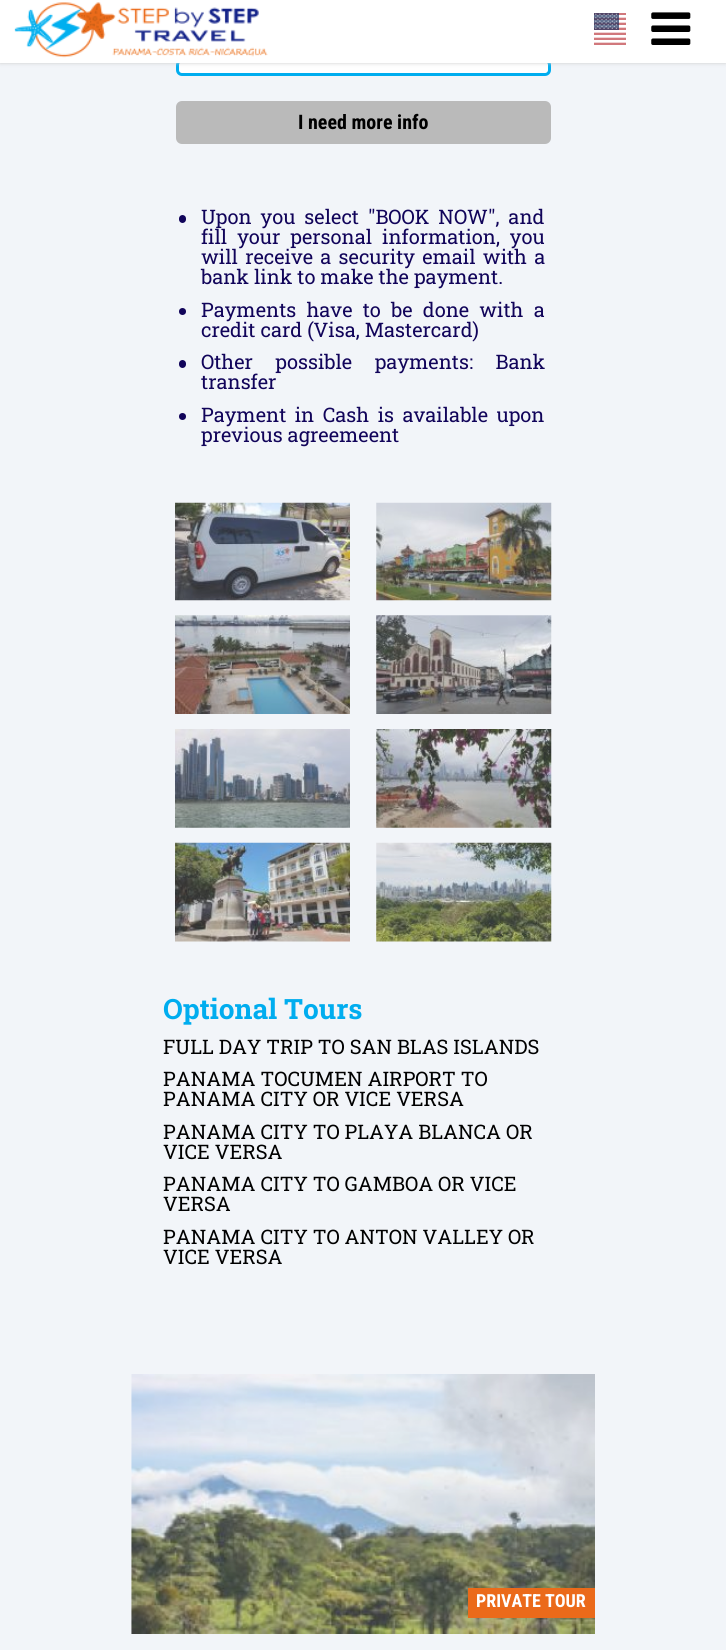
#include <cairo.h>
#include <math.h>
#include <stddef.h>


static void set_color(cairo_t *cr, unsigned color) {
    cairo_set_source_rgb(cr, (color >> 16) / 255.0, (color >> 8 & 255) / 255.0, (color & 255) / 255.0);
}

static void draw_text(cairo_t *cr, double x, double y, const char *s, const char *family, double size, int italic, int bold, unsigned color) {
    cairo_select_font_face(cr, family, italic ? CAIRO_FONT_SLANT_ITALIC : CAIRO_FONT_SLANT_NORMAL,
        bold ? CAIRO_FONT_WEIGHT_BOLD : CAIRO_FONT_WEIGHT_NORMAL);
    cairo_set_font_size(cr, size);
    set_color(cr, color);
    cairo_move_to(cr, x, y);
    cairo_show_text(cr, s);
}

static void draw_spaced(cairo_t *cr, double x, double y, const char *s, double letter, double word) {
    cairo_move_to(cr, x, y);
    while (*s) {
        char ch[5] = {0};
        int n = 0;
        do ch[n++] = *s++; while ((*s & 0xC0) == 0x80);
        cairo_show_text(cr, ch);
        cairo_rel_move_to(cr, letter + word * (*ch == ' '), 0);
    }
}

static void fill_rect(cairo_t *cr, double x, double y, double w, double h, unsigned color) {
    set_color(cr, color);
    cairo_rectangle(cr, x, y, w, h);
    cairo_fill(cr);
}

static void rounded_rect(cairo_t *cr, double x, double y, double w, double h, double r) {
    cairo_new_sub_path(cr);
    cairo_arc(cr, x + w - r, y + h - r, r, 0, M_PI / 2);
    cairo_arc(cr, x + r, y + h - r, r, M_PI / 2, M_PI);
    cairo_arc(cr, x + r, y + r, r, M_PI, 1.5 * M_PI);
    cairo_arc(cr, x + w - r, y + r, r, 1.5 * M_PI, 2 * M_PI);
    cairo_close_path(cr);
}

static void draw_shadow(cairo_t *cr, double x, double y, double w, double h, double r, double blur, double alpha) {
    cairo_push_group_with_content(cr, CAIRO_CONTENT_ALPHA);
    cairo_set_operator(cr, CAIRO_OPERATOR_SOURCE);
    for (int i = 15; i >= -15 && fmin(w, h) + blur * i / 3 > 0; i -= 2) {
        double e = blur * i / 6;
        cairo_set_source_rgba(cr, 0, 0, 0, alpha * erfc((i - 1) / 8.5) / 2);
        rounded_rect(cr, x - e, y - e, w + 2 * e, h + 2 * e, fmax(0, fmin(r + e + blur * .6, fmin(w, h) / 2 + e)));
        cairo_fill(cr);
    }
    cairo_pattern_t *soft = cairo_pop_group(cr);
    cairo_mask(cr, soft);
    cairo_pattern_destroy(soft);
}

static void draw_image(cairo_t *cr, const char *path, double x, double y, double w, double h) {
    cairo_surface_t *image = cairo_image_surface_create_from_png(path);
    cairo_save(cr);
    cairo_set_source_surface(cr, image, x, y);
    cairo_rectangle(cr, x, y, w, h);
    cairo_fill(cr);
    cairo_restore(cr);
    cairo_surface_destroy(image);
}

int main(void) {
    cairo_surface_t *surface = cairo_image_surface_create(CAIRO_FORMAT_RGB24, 726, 1650);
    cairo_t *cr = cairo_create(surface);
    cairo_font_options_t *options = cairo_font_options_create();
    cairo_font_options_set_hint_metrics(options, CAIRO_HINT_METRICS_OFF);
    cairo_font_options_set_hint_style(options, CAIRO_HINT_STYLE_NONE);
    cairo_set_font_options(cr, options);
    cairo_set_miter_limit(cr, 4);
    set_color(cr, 0xF2F5F9);
    cairo_paint(cr);
    set_color(cr, 0xFFFFFF);
    rounded_rect(cr, 177.5, 60.5, 372, 14, 4.5);
    cairo_fill_preserve(cr);
    set_color(cr, 0x00ADEF);
    cairo_set_line_width(cr, 3);
    cairo_stroke(cr);
    set_color(cr, 0xCCCCCC);
    draw_shadow(cr, 0, 0, 726, 63, 0, 2, 1);
    fill_rect(cr, 0, 0, 726, 63, 0xFFFFFF);
    draw_image(cr, "assets/img1.png", 14, 2, 254, 56);
    draw_image(cr, "assets/img2.png", 594, 13, 32, 32);
    draw_image(cr, "assets/img3.png", 651, 12, 40, 33);
    set_color(cr, 0xBABABA);
    rounded_rect(cr, 177.5, 102.5, 372, 40, 4.5);
    cairo_fill_preserve(cr);
    cairo_stroke(cr);
    draw_text(cr, 298, 129, "I need more info", "Roboto Condensed", 20, 0, 1, 0x000000);
    set_color(cr, 0x11045A);
    rounded_rect(cr, 179, 215, 7, 8, 3.5);
    cairo_fill(cr);
    cairo_select_font_face(cr, "Roboto Slab", CAIRO_FONT_SLANT_NORMAL, CAIRO_FONT_WEIGHT_NORMAL);
    draw_spaced(cr, 201, 224, "Upon you select \"BOOK NOW\", and", 0, 4);
    draw_spaced(cr, 201, 244, "fill your personal information, you", 0, 5);
    draw_spaced(cr, 201, 264, "will receive a security email with a", 0, 2.25);
    draw_text(cr, 201, 284, "bank link to make the payment.", "Roboto Slab", 20, 0, 0, 0x11045A);
    cairo_new_path(cr);
    cairo_arc(cr, 182.5, 311.5, 3.5, 0, 2 * M_PI);
    cairo_fill(cr);
    draw_spaced(cr, 201, 317, "Payments have to be done with a", 0, 5.25);
    draw_text(cr, 201, 337, "credit card (Visa, Mastercard)", "Roboto Slab", 20, 0, 0, 0x11045A);
    rounded_rect(cr, 179, 360, 7, 8, 3.5);
    cairo_fill(cr);
    draw_spaced(cr, 201, 369, "Other possible payments: Bank", 0, 17.5);
    draw_text(cr, 201, 389, "transfer", "Roboto Slab", 20, 0, 0, 0x11045A);
    cairo_new_path(cr);
    cairo_arc(cr, 182.5, 416.5, 3.5, 0, 2 * M_PI);
    cairo_fill(cr);
    draw_spaced(cr, 201, 422, "Payment in Cash is available upon", 0, 3.5);
    draw_text(cr, 201, 442, "previous agreemeent", "Roboto Slab", 20, 0, 0, 0x11045A);
    draw_image(cr, "assets/img4.png", 175, 502, 175, 99);
    draw_image(cr, "assets/img5.png", 376, 502, 176, 99);
    draw_image(cr, "assets/img6.png", 175, 615, 175, 99);
    draw_image(cr, "assets/img7.png", 376, 615, 176, 99);
    draw_image(cr, "assets/img8.png", 175, 729, 175, 99);
    draw_image(cr, "assets/img9.png", 376, 729, 176, 99);
    draw_image(cr, "assets/img10.png", 175, 842, 175, 100);
    draw_image(cr, "assets/img11.png", 376, 842, 176, 100);
    draw_text(cr, 163, 1019, "Optional Tours", "Roboto Slab", 28, 0, 1, 0x00ADEF);
    draw_text(cr, 163, 1054, "FULL DAY TRIP TO SAN BLAS ISLANDS", "Roboto Slab", 20, 0, 0, 0x000000);
    draw_text(cr, 163, 1086, "PANAMA TOCUMEN AIRPORT TO", "Roboto Slab", 20, 0, 0, 0x000000);
    draw_text(cr, 163, 1106, "PANAMA CITY OR VICE VERSA", "Roboto Slab", 20, 0, 0, 0x000000);
    draw_text(cr, 163, 1139, "PANAMA CITY TO PLAYA BLANCA OR", "Roboto Slab", 20, 0, 0, 0x000000);
    draw_text(cr, 163, 1159, "VICE VERSA", "Roboto Slab", 20, 0, 0, 0x000000);
    draw_text(cr, 163, 1191, "PANAMA CITY TO GAMBOA OR VICE", "Roboto Slab", 20, 0, 0, 0x000000);
    draw_text(cr, 163, 1211, "VERSA", "Roboto Slab", 20, 0, 0, 0x000000);
    draw_text(cr, 163, 1244, "PANAMA CITY TO ANTON VALLEY OR", "Roboto Slab", 20, 0, 0, 0x000000);
    draw_text(cr, 163, 1264, "VICE VERSA", "Roboto Slab", 20, 0, 0, 0x000000);
    draw_image(cr, "assets/img12.png", 131, 1374, 464, 260);
    fill_rect(cr, 468, 1588, 127, 30, 0xEB6A1A);
    draw_text(cr, 476, 1607, "PRIVATE TOUR", "Roboto Condensed", 18, 0, 1, 0xFFFFFF);
    cairo_surface_write_to_png(surface, "output.png");
    cairo_font_options_destroy(options);
    cairo_destroy(cr);
    cairo_surface_destroy(surface);
    return 0;
}
